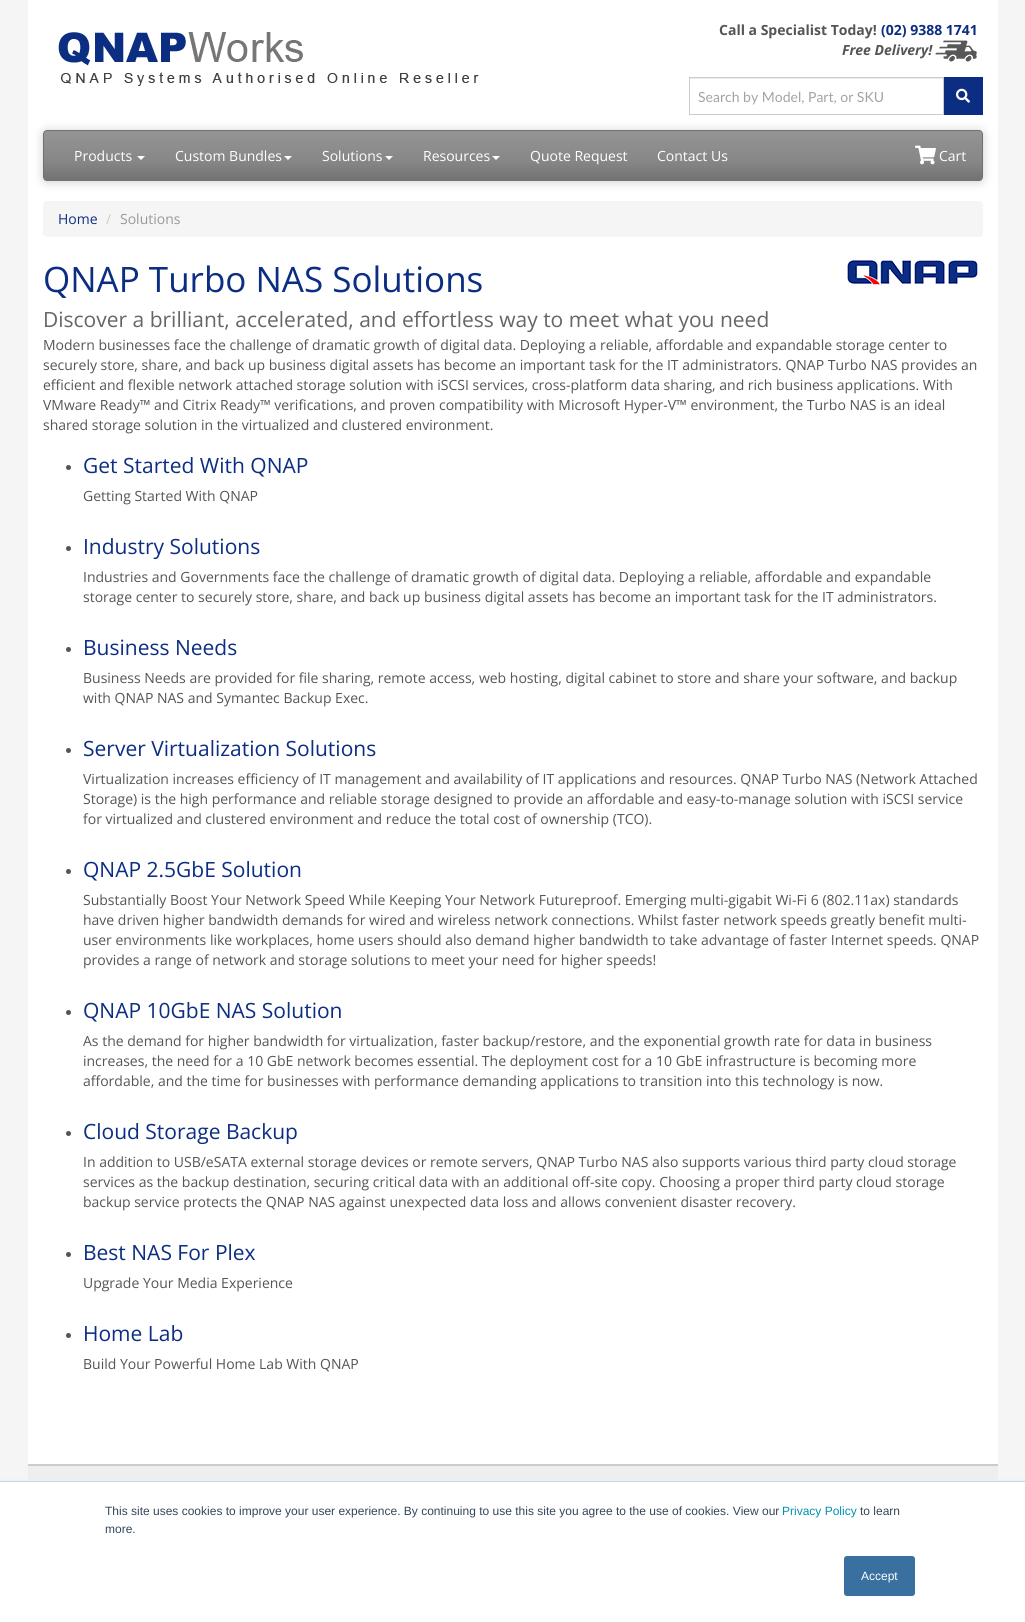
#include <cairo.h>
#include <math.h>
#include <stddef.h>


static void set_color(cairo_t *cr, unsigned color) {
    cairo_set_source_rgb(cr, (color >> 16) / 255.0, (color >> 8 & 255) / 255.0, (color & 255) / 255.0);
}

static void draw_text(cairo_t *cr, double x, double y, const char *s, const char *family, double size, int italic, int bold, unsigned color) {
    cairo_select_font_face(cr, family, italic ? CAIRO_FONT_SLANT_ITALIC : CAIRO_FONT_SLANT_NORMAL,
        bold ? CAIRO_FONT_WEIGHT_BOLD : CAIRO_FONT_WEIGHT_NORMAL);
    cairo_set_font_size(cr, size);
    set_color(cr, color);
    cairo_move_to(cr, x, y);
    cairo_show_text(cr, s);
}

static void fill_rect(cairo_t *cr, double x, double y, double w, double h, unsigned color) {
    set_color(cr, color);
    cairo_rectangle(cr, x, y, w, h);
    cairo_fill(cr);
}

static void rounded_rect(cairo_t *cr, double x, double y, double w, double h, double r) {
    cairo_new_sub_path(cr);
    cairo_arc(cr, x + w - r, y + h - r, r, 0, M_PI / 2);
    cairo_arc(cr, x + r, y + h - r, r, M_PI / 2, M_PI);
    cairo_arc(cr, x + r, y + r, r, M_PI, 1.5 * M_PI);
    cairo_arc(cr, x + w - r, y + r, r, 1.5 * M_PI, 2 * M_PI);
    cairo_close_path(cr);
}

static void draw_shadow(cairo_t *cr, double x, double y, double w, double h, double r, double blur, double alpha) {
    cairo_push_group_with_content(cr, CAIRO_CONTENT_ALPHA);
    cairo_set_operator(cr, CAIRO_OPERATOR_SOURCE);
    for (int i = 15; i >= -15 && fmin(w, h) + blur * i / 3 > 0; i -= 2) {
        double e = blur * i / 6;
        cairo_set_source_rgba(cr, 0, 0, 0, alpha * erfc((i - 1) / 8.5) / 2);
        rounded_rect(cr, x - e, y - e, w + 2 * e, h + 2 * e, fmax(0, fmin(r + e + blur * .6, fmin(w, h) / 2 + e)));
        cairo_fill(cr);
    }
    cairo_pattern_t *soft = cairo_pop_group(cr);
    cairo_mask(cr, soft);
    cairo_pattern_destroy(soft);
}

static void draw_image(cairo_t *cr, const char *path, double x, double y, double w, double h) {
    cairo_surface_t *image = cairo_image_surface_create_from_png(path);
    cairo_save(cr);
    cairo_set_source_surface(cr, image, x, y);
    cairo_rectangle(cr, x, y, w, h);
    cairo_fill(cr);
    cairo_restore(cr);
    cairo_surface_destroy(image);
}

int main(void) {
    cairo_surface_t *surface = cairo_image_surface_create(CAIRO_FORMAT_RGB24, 1025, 1622);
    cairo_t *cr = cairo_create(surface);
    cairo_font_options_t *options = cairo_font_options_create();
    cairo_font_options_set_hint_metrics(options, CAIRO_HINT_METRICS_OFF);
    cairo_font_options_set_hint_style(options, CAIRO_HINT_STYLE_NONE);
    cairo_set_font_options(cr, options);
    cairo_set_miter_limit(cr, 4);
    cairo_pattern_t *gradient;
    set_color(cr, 0xF5F5F5);
    cairo_paint(cr);
    fill_rect(cr, 28, 0, 970, 1464, 0xFFFFFF);
    draw_image(cr, "assets/img1.png", 58, 32, 421, 54);
    draw_text(cr, 719, 35, "Call a Specialist Today!", "Open Sans", 14, 0, 1, 0x555555);
    draw_text(cr, 881, 35, "(02) 9388 1741", "Open Sans", 14, 0, 1, 0x0C2E82);
    draw_text(cr, 842, 55, "Free Delivery!", "Open Sans", 14, 1, 1, 0x555555);
    draw_image(cr, "assets/img2.png", 935, 40, 42, 22);
    fill_rect(cr, 690, 78, 253, 1, 0xECECEC);
    cairo_rectangle(cr, 689.5, 77.5, 254, 37);
    set_color(cr, 0xCCCCCC);
    cairo_set_line_width(cr, 1);
    cairo_stroke(cr);
    draw_text(cr, 698, 102, "Search by Model, Part, or SKU", "Lato", 14, 0, 0, 0xA3A3A3);
    fill_rect(cr, 944, 77, 39, 38, 0x0C2E82);
    draw_image(cr, "assets/img3.png", 956, 88, 14, 15);
    set_color(cr, 0x000000);
    draw_shadow(cr, 43, 131, 940, 51, 4, 5, 0.2);
    cairo_save(cr);
    rounded_rect(cr, 43, 130, 940, 51, 4);
    cairo_clip(cr);
    gradient = cairo_pattern_create_linear(513, 131, 513, 181);
    cairo_pattern_add_color_stop_rgba(gradient, 0, 0.58, 0.58, 0.58, 1);
    cairo_pattern_add_color_stop_rgba(gradient, 0.6, 0.529, 0.529, 0.529, 1);
    cairo_pattern_add_color_stop_rgba(gradient, 1, 0.443, 0.443, 0.443, 1);
    cairo_set_source(cr, gradient);
    cairo_pattern_destroy(gradient);
    cairo_rectangle(cr, 44, 131, 938, 50);
    cairo_fill(cr);
    cairo_restore(cr);
    set_color(cr, 0x717171);
    cairo_set_fill_rule(cr, CAIRO_FILL_RULE_EVEN_ODD);
    cairo_new_path(cr);
    cairo_move_to(cr, 47, 130);
    cairo_line_to(cr, 979, 130);
    cairo_curve_to(cr, 981, 130, 983, 132, 983, 134);
    cairo_line_to(cr, 983, 177);
    cairo_curve_to(cr, 983, 179, 981, 181, 979, 181);
    cairo_line_to(cr, 47, 181);
    cairo_curve_to(cr, 45, 181, 43, 179, 43, 177);
    cairo_line_to(cr, 43, 134);
    cairo_curve_to(cr, 43, 132, 45, 130, 47, 130);
    cairo_close_path(cr);
    cairo_move_to(cr, 47, 131);
    cairo_line_to(cr, 979, 131);
    cairo_curve_to(cr, 981, 131, 982, 132, 982, 134);
    cairo_line_to(cr, 982, 177);
    cairo_curve_to(cr, 982, 179, 981, 181, 979, 181);
    cairo_line_to(cr, 47, 181);
    cairo_curve_to(cr, 45, 181, 44, 179, 44, 177);
    cairo_line_to(cr, 44, 134);
    cairo_curve_to(cr, 44, 132, 45, 131, 47, 131);
    cairo_close_path(cr);
    cairo_fill(cr);
    draw_text(cr, 74, 161, "Products", "Open Sans", 14, 0, 0, 0xFFFFFF);
    cairo_set_fill_rule(cr, CAIRO_FILL_RULE_WINDING);
    cairo_new_path(cr);
    cairo_move_to(cr, 137, 156);
    cairo_line_to(cr, 145, 156);
    cairo_line_to(cr, 141, 160);
    cairo_close_path(cr);
    cairo_fill(cr);
    draw_text(cr, 175, 161, "Custom Bundles", "Open Sans", 14, 0, 0, 0xFFFFFF);
    cairo_new_path(cr);
    cairo_move_to(cr, 284, 156);
    cairo_line_to(cr, 292, 156);
    cairo_line_to(cr, 288, 160);
    cairo_close_path(cr);
    cairo_fill(cr);
    draw_text(cr, 322, 161, "Solutions", "Open Sans", 14, 0, 0, 0xFFFFFF);
    cairo_new_path(cr);
    cairo_move_to(cr, 385, 156);
    cairo_line_to(cr, 393, 156);
    cairo_line_to(cr, 389, 160);
    cairo_close_path(cr);
    cairo_fill(cr);
    draw_text(cr, 423, 161, "Resources", "Open Sans", 14, 0, 0, 0xFFFFFF);
    cairo_new_path(cr);
    cairo_move_to(cr, 492, 156);
    cairo_line_to(cr, 500, 156);
    cairo_line_to(cr, 496, 160);
    cairo_close_path(cr);
    cairo_fill(cr);
    draw_text(cr, 530, 161, "Quote Request", "Open Sans", 14, 0, 0, 0xFFFFFF);
    draw_text(cr, 657, 161, "Contact Us", "Open Sans", 14, 0, 0, 0xFFFFFF);
    draw_image(cr, "assets/img4.png", 915, 145, 21, 20);
    draw_text(cr, 939, 161, "Cart", "Open Sans", 14, 0, 0, 0xFFFFFF);
    set_color(cr, 0xF5F5F5);
    rounded_rect(cr, 43, 201, 940, 36, 4);
    cairo_fill(cr);
    draw_text(cr, 58, 224, "Home", "Open Sans", 14, 0, 0, 0x0C2E82);
    draw_text(cr, 106, 224, "/", "Open Sans", 14, 0, 0, 0xCCCCCC);
    draw_text(cr, 120, 224, "Solutions", "Open Sans", 14, 0, 0, 0x999999);
    draw_text(cr, 43, 292, "QNAP Turbo NAS Solutions", "Open Sans", 35, 0, 0, 0x0C2E82);
    draw_text(cr, 43, 327, "Discover a brilliant, accelerated, and effortless way to meet what you need", "Open Sans", 21, 0, 0, 0x666666);
    draw_image(cr, "assets/img5.png", 847, 260, 131, 25);
    draw_text(cr, 43, 350, "Modern businesses face the challenge of dramatic growth of digital data. Deploying a reliable, affordable and expandable storage center to", "Open Sans", 14, 0, 0, 0x555555);
    draw_text(cr, 43, 370, "securely store, share, and back up business digital assets has become an important task for the IT administrators. QNAP Turbo NAS provides an", "Open Sans", 14, 0, 0, 0x555555);
    draw_text(cr, 43, 390, "efficient and flexible network attached storage solution with iSCSI services, cross-platform data sharing, and rich business applications. With", "Open Sans", 14, 0, 0, 0x555555);
    draw_text(cr, 43, 410, "VMware Ready™ and Citrix Ready™ verifications, and proven compatibility with Microsoft Hyper-V™ environment, the Turbo NAS is an ideal", "Open Sans", 14, 0, 0, 0x555555);
    draw_text(cr, 43, 430, "shared storage solution in the virtualized and clustered environment.", "Open Sans", 14, 0, 0, 0x555555);
    cairo_new_path(cr);
    cairo_arc(cr, 68.5, 467.5, 2.5, 0, 2 * M_PI);
    cairo_fill(cr);
    draw_text(cr, 83, 473, "Get Started With QNAP", "Open Sans", 21, 0, 0, 0x0C2E82);
    draw_text(cr, 83, 501, "Getting Started With QNAP", "Open Sans", 14, 0, 0, 0x555555);
    cairo_new_path(cr);
    cairo_arc(cr, 68.5, 548.5, 2.5, 0, 2 * M_PI);
    cairo_fill(cr);
    draw_text(cr, 83, 554, "Industry Solutions", "Open Sans", 21, 0, 0, 0x0C2E82);
    draw_text(cr, 83, 582, "Industries and Governments face the challenge of dramatic growth of digital data. Deploying a reliable, affordable and expandable", "Open Sans", 14, 0, 0, 0x555555);
    draw_text(cr, 83, 602, "storage center to securely store, share, and back up business digital assets has become an important task for the IT administrators.", "Open Sans", 14, 0, 0, 0x555555);
    cairo_new_path(cr);
    cairo_arc(cr, 68.5, 649.5, 2.5, 0, 2 * M_PI);
    cairo_fill(cr);
    draw_text(cr, 83, 655, "Business Needs", "Open Sans", 21, 0, 0, 0x0C2E82);
    draw_text(cr, 83, 683, "Business Needs are provided for file sharing, remote access, web hosting, digital cabinet to store and share your software, and backup", "Open Sans", 14, 0, 0, 0x555555);
    draw_text(cr, 83, 703, "with QNAP NAS and Symantec Backup Exec.", "Open Sans", 14, 0, 0, 0x555555);
    cairo_new_path(cr);
    cairo_arc(cr, 68.5, 750.5, 2.5, 0, 2 * M_PI);
    cairo_fill(cr);
    draw_text(cr, 83, 756, "Server Virtualization Solutions", "Open Sans", 21, 0, 0, 0x0C2E82);
    draw_text(cr, 83, 784, "Virtualization increases efficiency of IT management and availability of IT applications and resources. QNAP Turbo NAS (Network Attached", "Open Sans", 14, 0, 0, 0x555555);
    draw_text(cr, 83, 804, "Storage) is the high performance and reliable storage designed to provide an affordable and easy-to-manage solution with iSCSI service", "Open Sans", 14, 0, 0, 0x555555);
    draw_text(cr, 83, 824, "for virtualized and clustered environment and reduce the total cost of ownership (TCO).", "Open Sans", 14, 0, 0, 0x555555);
    cairo_new_path(cr);
    cairo_arc(cr, 68.5, 871.5, 2.5, 0, 2 * M_PI);
    cairo_fill(cr);
    draw_text(cr, 83, 877, "QNAP 2.5GbE Solution", "Open Sans", 21, 0, 0, 0x0C2E82);
    draw_text(cr, 83, 905, "Substantially Boost Your Network Speed While Keeping Your Network Futureproof. Emerging multi-gigabit Wi-Fi 6 (802.11ax) standards", "Open Sans", 14, 0, 0, 0x555555);
    draw_text(cr, 83, 925, "have driven higher bandwidth demands for wired and wireless network connections. Whilst faster network speeds greatly benefit multi-", "Open Sans", 14, 0, 0, 0x555555);
    draw_text(cr, 83, 945, "user environments like workplaces, home users should also demand higher bandwidth to take advantage of faster Internet speeds. QNAP", "Open Sans", 14, 0, 0, 0x555555);
    draw_text(cr, 83, 965, "provides a range of network and storage solutions to meet your need for higher speeds!", "Open Sans", 14, 0, 0, 0x555555);
    cairo_new_path(cr);
    cairo_arc(cr, 68.5, 1012.5, 2.5, 0, 2 * M_PI);
    cairo_fill(cr);
    draw_text(cr, 83, 1018, "QNAP 10GbE NAS Solution", "Open Sans", 21, 0, 0, 0x0C2E82);
    draw_text(cr, 83, 1046, "As the demand for higher bandwidth for virtualization, faster backup/restore, and the exponential growth rate for data in business", "Open Sans", 14, 0, 0, 0x555555);
    draw_text(cr, 83, 1066, "increases, the need for a 10 GbE network becomes essential. The deployment cost for a 10 GbE infrastructure is becoming more", "Open Sans", 14, 0, 0, 0x555555);
    draw_text(cr, 83, 1086, "affordable, and the time for businesses with performance demanding applications to transition into this technology is now.", "Open Sans", 14, 0, 0, 0x555555);
    cairo_new_path(cr);
    cairo_arc(cr, 68.5, 1133.5, 2.5, 0, 2 * M_PI);
    cairo_fill(cr);
    draw_text(cr, 83, 1139, "Cloud Storage Backup", "Open Sans", 21, 0, 0, 0x0C2E82);
    draw_text(cr, 83, 1167, "In addition to USB/eSATA external storage devices or remote servers, QNAP Turbo NAS also supports various third party cloud storage", "Open Sans", 14, 0, 0, 0x555555);
    draw_text(cr, 83, 1187, "services as the backup destination, securing critical data with an additional off-site copy. Choosing a proper third party cloud storage", "Open Sans", 14, 0, 0, 0x555555);
    draw_text(cr, 83, 1207, "backup service protects the QNAP NAS against unexpected data loss and allows convenient disaster recovery.", "Open Sans", 14, 0, 0, 0x555555);
    cairo_new_path(cr);
    cairo_arc(cr, 68.5, 1254.5, 2.5, 0, 2 * M_PI);
    cairo_fill(cr);
    draw_text(cr, 83, 1260, "Best NAS For Plex", "Open Sans", 21, 0, 0, 0x0C2E82);
    draw_text(cr, 83, 1288, "Upgrade Your Media Experience", "Open Sans", 14, 0, 0, 0x555555);
    cairo_new_path(cr);
    cairo_arc(cr, 68.5, 1335.5, 2.5, 0, 2 * M_PI);
    cairo_fill(cr);
    draw_text(cr, 83, 1341, "Home Lab", "Open Sans", 21, 0, 0, 0x0C2E82);
    draw_text(cr, 83, 1369, "Build Your Powerful Home Lab With QNAP", "Open Sans", 14, 0, 0, 0x555555);
    fill_rect(cr, 28, 1466, 970, 15, 0xEEEEEE);
    fill_rect(cr, 28, 1464, 970, 2, 0xCCCCCC);
    set_color(cr, 0xEAF0F6);
    draw_shadow(cr, 0, 1480, 1025, 141, 0, 1.5, 1);
    fill_rect(cr, 0, 1482, 1025, 140, 0xFFFFFF);
    fill_rect(cr, 0, 1481, 1025, 1, 0xCBD6E2);
    draw_text(cr, 105, 1515, "This site uses cookies to improve your user experience. By continuing to use this site you agree to the use of cookies. View our", "Liberation Sans", 12, 0, 0, 0x33475B);
    draw_text(cr, 782, 1515, "Privacy Policy", "Liberation Sans", 12, 0, 0, 0x0091AE);
    draw_text(cr, 860, 1515, "to learn", "Liberation Sans", 12, 0, 0, 0x33475B);
    draw_text(cr, 105, 1533, "more.", "Liberation Sans", 12, 0, 0, 0x33475B);
    set_color(cr, 0x39709F);
    rounded_rect(cr, 844.5, 1556.5, 70, 39, 2.5);
    cairo_fill_preserve(cr);
    cairo_stroke(cr);
    draw_text(cr, 861, 1580, "Accept", "Liberation Sans", 12, 0, 0, 0xFFFFFF);
    cairo_surface_write_to_png(surface, "output.png");
    cairo_font_options_destroy(options);
    cairo_destroy(cr);
    cairo_surface_destroy(surface);
    return 0;
}
